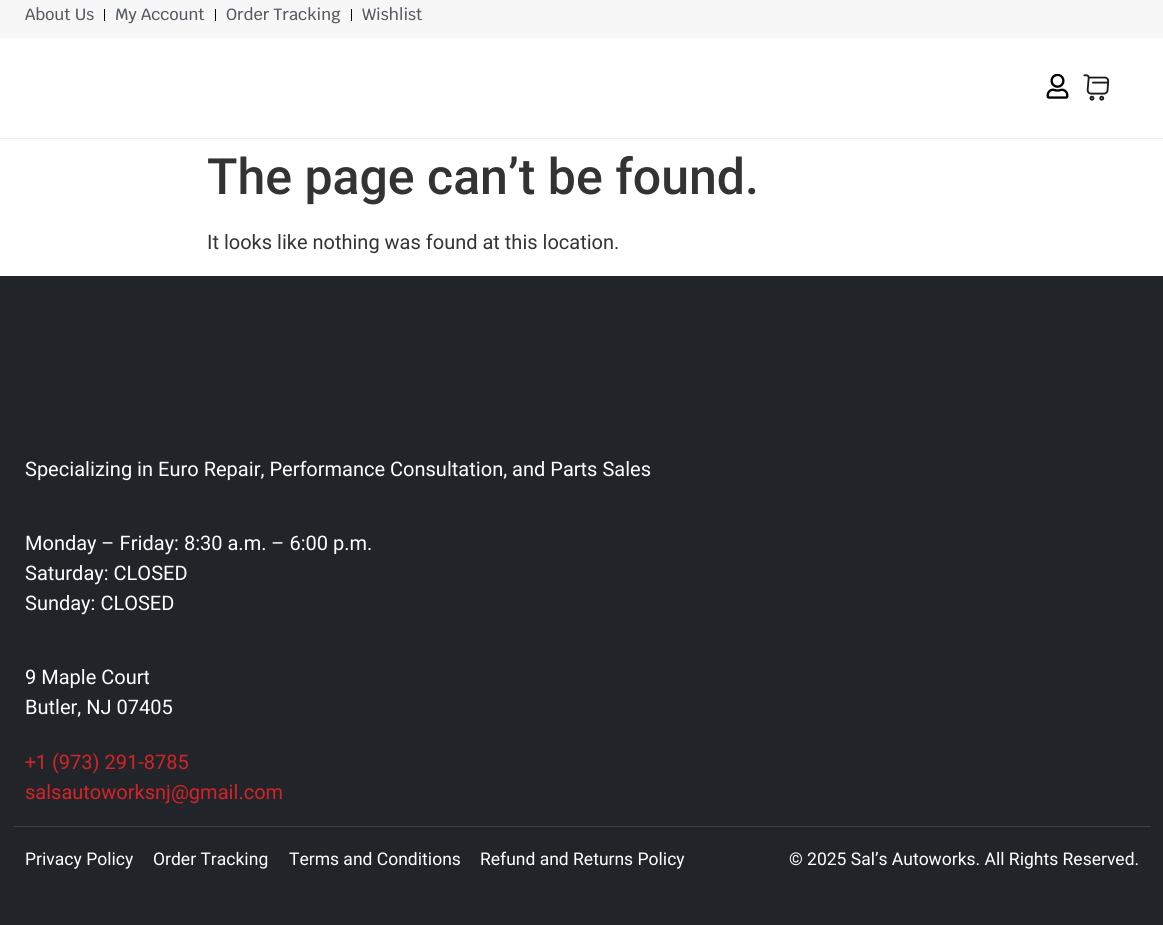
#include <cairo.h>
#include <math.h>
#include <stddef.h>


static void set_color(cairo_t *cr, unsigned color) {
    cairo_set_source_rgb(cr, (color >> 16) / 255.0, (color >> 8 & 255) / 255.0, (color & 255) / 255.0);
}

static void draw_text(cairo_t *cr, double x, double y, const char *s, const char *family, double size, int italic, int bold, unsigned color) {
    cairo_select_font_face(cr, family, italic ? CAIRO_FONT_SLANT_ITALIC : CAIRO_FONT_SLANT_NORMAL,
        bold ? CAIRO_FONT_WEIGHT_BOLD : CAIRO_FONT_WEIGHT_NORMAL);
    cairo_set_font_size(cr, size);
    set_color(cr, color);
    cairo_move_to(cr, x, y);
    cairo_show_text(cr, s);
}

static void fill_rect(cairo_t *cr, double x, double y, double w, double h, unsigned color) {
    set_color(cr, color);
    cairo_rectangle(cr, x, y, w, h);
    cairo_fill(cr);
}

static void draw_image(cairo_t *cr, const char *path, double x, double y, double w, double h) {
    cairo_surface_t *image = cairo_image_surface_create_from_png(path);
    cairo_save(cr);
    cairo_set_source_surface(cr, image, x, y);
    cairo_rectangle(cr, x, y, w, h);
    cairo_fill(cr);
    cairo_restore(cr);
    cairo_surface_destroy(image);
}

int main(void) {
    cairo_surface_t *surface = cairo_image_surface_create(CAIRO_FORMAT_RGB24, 1163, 925);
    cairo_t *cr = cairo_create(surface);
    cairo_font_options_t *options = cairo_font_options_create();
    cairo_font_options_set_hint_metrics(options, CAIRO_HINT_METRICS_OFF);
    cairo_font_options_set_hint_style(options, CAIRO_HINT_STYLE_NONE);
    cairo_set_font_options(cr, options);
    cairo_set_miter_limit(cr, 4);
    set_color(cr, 0xFFFFFF);
    cairo_paint(cr);
    fill_rect(cr, 0, 0, 1163, 38, 0xF7F7F7);
    draw_text(cr, 25, 20, "About Us", "Krub Medium", 16.25, 0, 0, 0x54595F);
    fill_rect(cr, 104, 9, 1, 12, 0x000000);
    draw_text(cr, 115, 20, "My Account", "Krub Medium", 16.25, 0, 0, 0x54595F);
    fill_rect(cr, 215, 9, 1, 12, 0x000000);
    draw_text(cr, 226, 20, "Order Tracking", "Krub Medium", 16.25, 0, 0, 0x54595F);
    fill_rect(cr, 351, 9, 1, 12, 0x000000);
    draw_text(cr, 362, 20, "Wishlist", "Krub Medium", 16.25, 0, 0, 0x54595F);
    fill_rect(cr, 0, 138, 1163, 1, 0xEEEEEE);
    draw_image(cr, "assets/img1.png", 1046, 74, 23, 25);
    draw_image(cr, "assets/img2.png", 1083, 74, 27, 27);
    draw_text(cr, 207, 194, "The page can’t be found.", "Roboto Medium", 50, 0, 0, 0x333333);
    draw_text(cr, 207, 249, "It looks like nothing was found at this location.", "Roboto", 20, 0, 0, 0x333333);
    fill_rect(cr, 0, 276, 1163, 649, 0x212529);
    draw_text(cr, 25, 476, "Specializing in Euro Repair, Performance Consultation, and Parts Sales", "Heebo", 20, 0, 0, 0xFFFFFF);
    draw_text(cr, 25, 550, "Monday – Friday: 8:30 a.m. – 6:00 p.m.", "Heebo", 20, 0, 0, 0xFFFFFF);
    draw_text(cr, 25, 580, "Saturday: CLOSED", "Heebo", 20, 0, 0, 0xFFFFFF);
    draw_text(cr, 25, 610, "Sunday: CLOSED", "Heebo", 20, 0, 0, 0xFFFFFF);
    draw_text(cr, 25, 684, "9 Maple Court", "Heebo", 20, 0, 0, 0xFFFFFF);
    draw_text(cr, 25, 714, "Butler, NJ 07405", "Heebo", 20, 0, 0, 0xFFFFFF);
    draw_text(cr, 25, 769, "+1 (973) 291-8785", "Heebo", 20, 0, 0, 0xD52226);
    draw_text(cr, 25, 799, "salsautoworksnj@gmail.com", "Heebo", 20, 0, 0, 0xD52226);
    fill_rect(cr, 13, 826, 1138, 1, 0x3F3F3F);
    draw_text(cr, 25, 865, "Privacy Policy", "Heebo", 17.5, 0, 0, 0xFFFFFF);
    draw_text(cr, 153, 865, "Order Tracking", "Heebo", 17.5, 0, 0, 0xFFFFFF);
    draw_text(cr, 289, 865, "Terms and Conditions", "Heebo", 17.5, 0, 0, 0xFFFFFF);
    draw_text(cr, 480, 865, "Refund and Returns Policy", "Heebo", 17.5, 0, 0, 0xFFFFFF);
    draw_text(cr, 789, 865, "© 2025 Sal’s Autoworks. All Rights Reserved.", "Heebo", 17.5, 0, 0, 0xFFFFFF);
    cairo_surface_write_to_png(surface, "output.png");
    cairo_font_options_destroy(options);
    cairo_destroy(cr);
    cairo_surface_destroy(surface);
    return 0;
}
